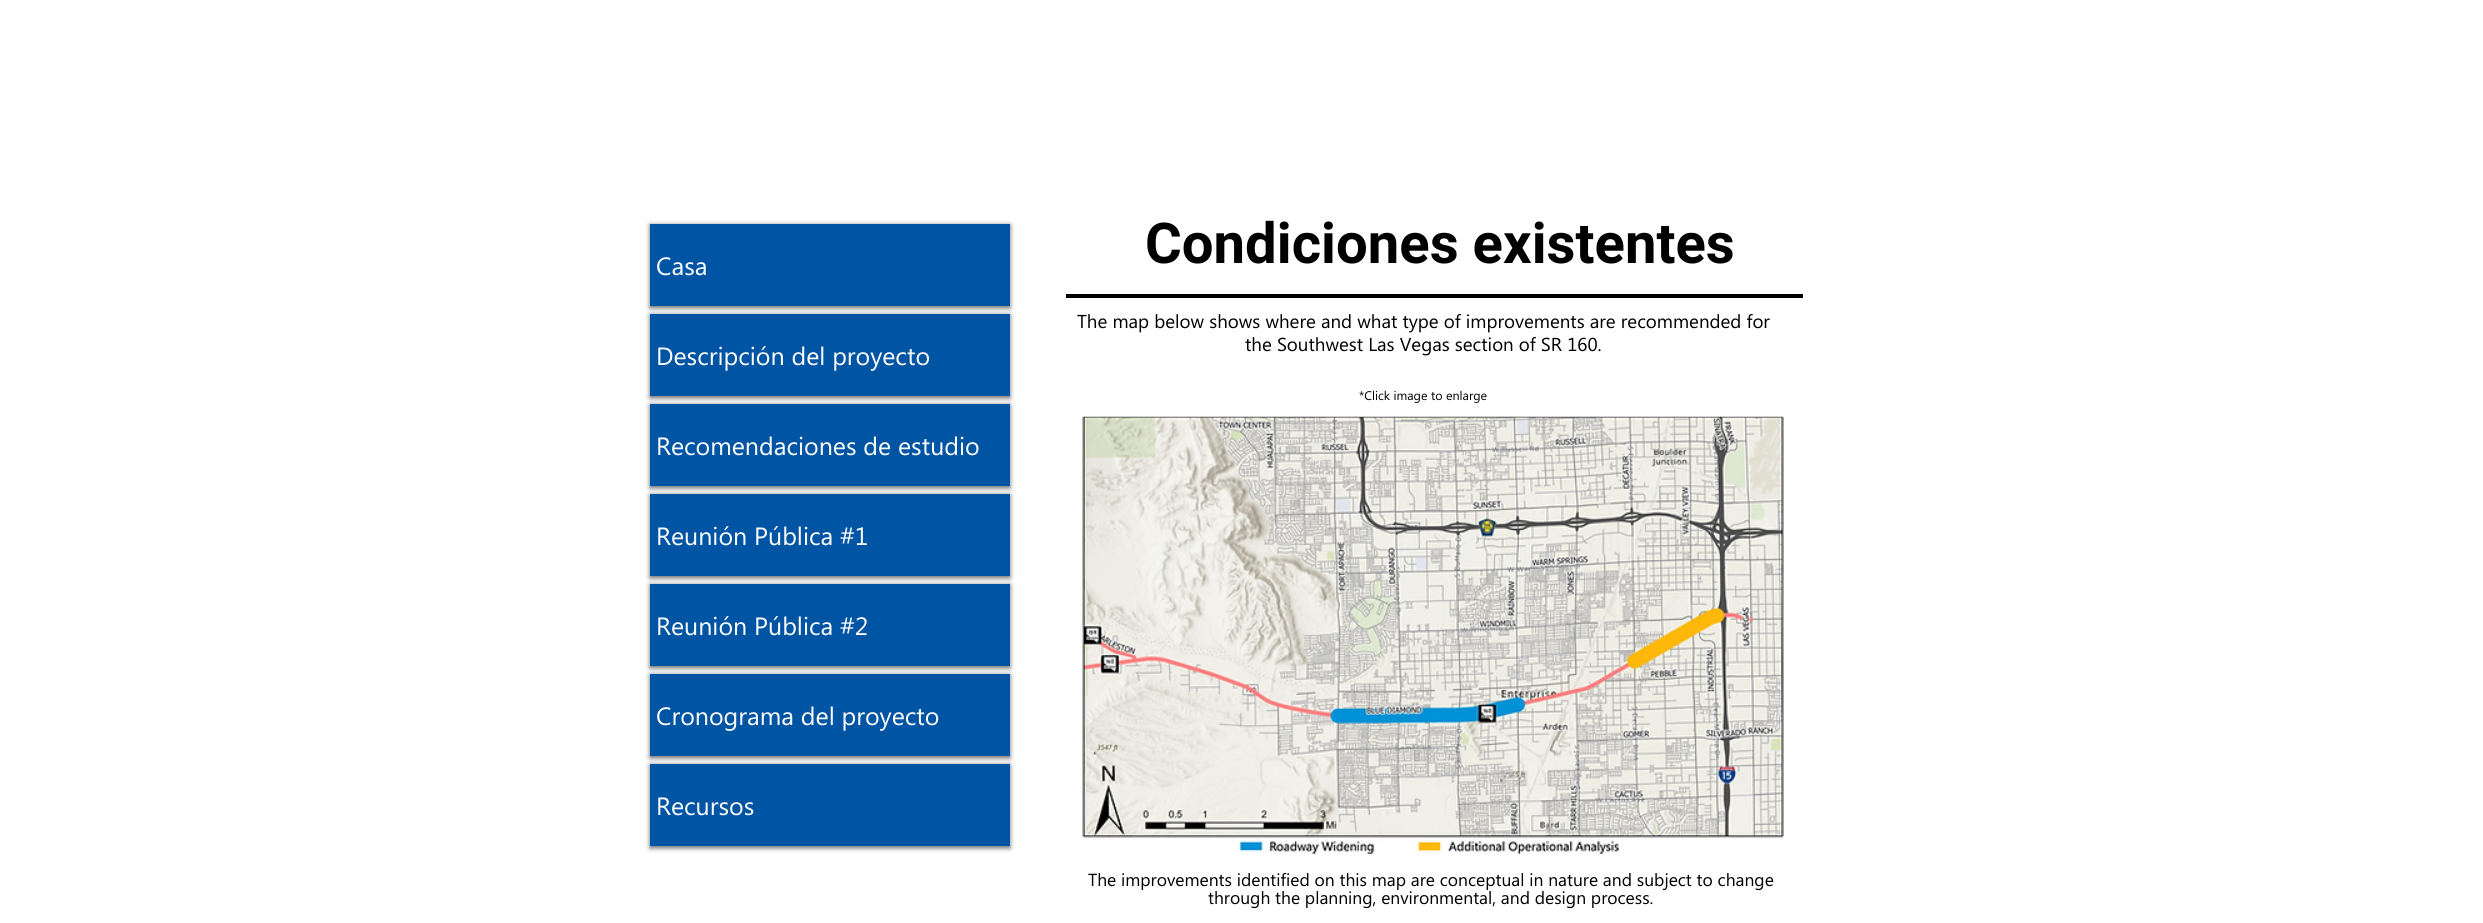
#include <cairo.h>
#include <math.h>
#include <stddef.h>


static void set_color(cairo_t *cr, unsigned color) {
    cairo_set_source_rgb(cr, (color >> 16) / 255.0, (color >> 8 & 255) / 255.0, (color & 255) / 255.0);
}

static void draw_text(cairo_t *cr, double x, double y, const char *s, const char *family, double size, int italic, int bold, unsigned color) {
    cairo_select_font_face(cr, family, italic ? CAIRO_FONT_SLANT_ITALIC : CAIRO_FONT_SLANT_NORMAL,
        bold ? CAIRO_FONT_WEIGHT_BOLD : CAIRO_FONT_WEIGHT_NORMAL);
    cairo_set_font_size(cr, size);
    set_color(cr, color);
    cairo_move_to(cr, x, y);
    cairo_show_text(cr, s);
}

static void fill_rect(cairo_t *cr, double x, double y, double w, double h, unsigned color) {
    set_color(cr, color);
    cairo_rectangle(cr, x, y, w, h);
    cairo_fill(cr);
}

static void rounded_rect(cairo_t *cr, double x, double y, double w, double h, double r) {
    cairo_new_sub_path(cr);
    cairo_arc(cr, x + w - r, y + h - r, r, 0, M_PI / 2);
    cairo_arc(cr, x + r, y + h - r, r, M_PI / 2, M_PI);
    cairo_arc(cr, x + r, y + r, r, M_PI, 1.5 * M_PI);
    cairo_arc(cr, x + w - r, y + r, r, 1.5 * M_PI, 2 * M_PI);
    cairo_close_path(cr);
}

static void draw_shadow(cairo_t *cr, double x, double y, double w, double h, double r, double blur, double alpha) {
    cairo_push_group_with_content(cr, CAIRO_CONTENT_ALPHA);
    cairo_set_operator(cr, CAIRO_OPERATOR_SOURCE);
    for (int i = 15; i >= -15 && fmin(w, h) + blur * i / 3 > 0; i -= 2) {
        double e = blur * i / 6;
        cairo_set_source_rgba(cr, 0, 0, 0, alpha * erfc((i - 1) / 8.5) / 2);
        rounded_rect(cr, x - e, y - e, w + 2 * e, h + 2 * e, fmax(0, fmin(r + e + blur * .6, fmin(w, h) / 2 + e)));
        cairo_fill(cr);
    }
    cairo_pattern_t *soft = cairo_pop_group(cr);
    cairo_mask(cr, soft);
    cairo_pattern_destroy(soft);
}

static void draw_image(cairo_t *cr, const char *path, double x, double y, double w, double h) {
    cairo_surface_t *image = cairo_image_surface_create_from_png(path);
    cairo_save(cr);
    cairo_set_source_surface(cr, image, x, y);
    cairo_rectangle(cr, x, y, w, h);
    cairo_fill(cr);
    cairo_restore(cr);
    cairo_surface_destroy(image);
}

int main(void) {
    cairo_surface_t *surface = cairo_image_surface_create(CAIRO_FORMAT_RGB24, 2483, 923);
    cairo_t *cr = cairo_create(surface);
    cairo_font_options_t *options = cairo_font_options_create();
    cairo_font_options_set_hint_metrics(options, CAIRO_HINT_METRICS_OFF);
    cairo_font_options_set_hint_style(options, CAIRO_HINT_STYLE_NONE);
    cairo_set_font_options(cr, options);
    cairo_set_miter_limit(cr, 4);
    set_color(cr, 0xFFFFFF);
    cairo_paint(cr);
    set_color(cr, 0x000000);
    draw_shadow(cr, 650, 225, 360, 83, 0, 2.5, 0.6);
    fill_rect(cr, 650, 224, 360, 82, 0x0054A4);
    draw_text(cr, 656, 275, "Casa", "Segoe UI", 25, 0, 0, 0xFFFFFF);
    set_color(cr, 0x000000);
    draw_shadow(cr, 650, 315, 360, 83, 0, 2.5, 0.6);
    fill_rect(cr, 650, 314, 360, 82, 0x0054A4);
    draw_text(cr, 656, 365, "Descripción del proyecto", "Segoe UI", 25, 0, 0, 0xFFFFFF);
    set_color(cr, 0x000000);
    draw_shadow(cr, 650, 405, 360, 83, 0, 2.5, 0.6);
    fill_rect(cr, 650, 404, 360, 82, 0x0054A4);
    draw_text(cr, 656, 455, "Recomendaciones de estudio", "Segoe UI", 25, 0, 0, 0xFFFFFF);
    set_color(cr, 0x000000);
    draw_shadow(cr, 650, 495, 360, 83, 0, 2.5, 0.6);
    fill_rect(cr, 650, 494, 360, 82, 0x0054A4);
    draw_text(cr, 656, 545, "Reunión Pública #1", "Segoe UI", 25, 0, 0, 0xFFFFFF);
    set_color(cr, 0x000000);
    draw_shadow(cr, 650, 585, 360, 83, 0, 2.5, 0.6);
    fill_rect(cr, 650, 584, 360, 82, 0x0054A4);
    draw_text(cr, 656, 635, "Reunión Pública #2", "Segoe UI", 25, 0, 0, 0xFFFFFF);
    set_color(cr, 0x000000);
    draw_shadow(cr, 650, 675, 360, 83, 0, 2.5, 0.6);
    fill_rect(cr, 650, 674, 360, 82, 0x0054A4);
    draw_text(cr, 656, 725, "Cronograma del proyecto", "Segoe UI", 25, 0, 0, 0xFFFFFF);
    set_color(cr, 0x000000);
    draw_shadow(cr, 650, 765, 360, 83, 0, 2.5, 0.6);
    fill_rect(cr, 650, 764, 360, 82, 0x0054A4);
    draw_text(cr, 656, 815, "Recursos", "Segoe UI", 25, 0, 0, 0xFFFFFF);
    draw_text(cr, 1145, 263, "Condiciones existentes", "Roboto", 56.25, 0, 1, 0x000000);
    fill_rect(cr, 1066, 294, 737, 4, 0x000000);
    draw_text(cr, 1077, 328, "The map below shows where and what type of improvements are recommended for", "Segoe UI", 18.75, 0, 0, 0x000000);
    draw_text(cr, 1245, 351, "the Southwest Las Vegas section of SR 160.", "Segoe UI", 18.75, 0, 0, 0x000000);
    draw_text(cr, 1359, 400, "*Click image to enlarge", "Segoe UI", 12.5, 0, 0, 0x000000);
    draw_image(cr, "assets/img1.png", 1082, 416, 702, 438);
    draw_text(cr, 1088, 886, "The improvements identified on this map are conceptual in nature and subject to change", "Segoe UI", 17.5, 0, 0, 0x000000);
    draw_text(cr, 1208, 904, "through the planning, environmental, and design process.", "Segoe UI", 17.5, 0, 0, 0x000000);
    cairo_surface_write_to_png(surface, "output.png");
    cairo_font_options_destroy(options);
    cairo_destroy(cr);
    cairo_surface_destroy(surface);
    return 0;
}
